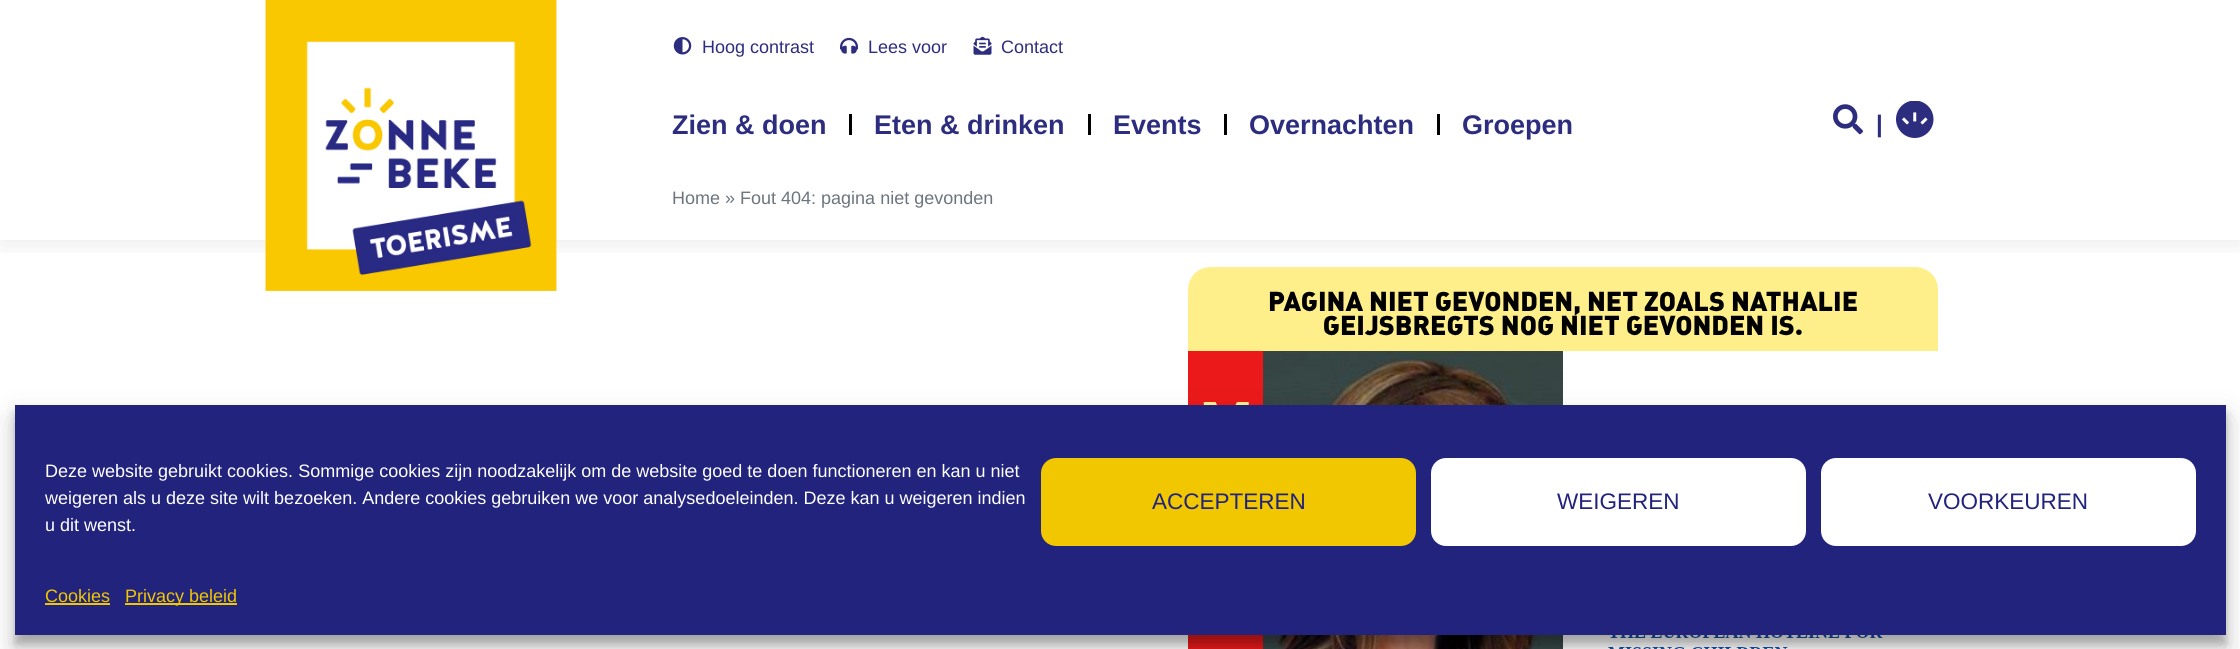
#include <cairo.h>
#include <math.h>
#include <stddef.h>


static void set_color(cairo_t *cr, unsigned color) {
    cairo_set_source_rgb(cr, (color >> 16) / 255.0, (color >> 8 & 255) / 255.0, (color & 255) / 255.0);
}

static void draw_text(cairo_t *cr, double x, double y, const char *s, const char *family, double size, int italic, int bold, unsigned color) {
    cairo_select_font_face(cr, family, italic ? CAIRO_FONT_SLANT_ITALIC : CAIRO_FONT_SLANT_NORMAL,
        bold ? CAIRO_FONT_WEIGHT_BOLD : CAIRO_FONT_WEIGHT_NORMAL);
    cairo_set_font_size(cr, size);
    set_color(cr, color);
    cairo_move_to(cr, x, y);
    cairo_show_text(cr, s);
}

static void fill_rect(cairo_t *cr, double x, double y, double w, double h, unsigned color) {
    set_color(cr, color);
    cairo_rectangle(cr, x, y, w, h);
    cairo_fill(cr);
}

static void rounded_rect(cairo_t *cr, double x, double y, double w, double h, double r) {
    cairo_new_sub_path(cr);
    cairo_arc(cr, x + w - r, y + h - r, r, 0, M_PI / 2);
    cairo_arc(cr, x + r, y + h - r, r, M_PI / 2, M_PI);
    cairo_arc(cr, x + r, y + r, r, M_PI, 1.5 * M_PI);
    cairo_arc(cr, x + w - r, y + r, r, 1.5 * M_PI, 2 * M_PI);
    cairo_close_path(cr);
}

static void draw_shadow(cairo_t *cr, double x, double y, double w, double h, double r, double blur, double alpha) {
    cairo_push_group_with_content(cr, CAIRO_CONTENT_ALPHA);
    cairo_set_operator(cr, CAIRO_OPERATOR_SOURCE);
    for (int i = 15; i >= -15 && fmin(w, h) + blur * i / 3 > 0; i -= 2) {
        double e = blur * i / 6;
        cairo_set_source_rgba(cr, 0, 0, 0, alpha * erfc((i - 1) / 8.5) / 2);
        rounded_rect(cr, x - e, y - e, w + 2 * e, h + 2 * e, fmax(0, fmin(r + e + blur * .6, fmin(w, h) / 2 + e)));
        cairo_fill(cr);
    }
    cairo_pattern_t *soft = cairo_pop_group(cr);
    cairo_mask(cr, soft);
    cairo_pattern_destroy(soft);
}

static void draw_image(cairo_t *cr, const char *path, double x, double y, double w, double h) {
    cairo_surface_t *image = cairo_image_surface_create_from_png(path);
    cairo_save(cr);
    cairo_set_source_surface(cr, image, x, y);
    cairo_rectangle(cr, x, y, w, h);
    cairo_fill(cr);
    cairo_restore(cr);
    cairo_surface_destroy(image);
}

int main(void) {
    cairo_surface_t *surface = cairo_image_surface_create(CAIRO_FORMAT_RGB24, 2240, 649);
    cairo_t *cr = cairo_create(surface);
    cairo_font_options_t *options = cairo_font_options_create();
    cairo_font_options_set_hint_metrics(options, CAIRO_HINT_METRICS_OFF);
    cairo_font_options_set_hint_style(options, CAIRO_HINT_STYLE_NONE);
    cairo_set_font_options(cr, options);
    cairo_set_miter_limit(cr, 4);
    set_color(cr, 0xFFFFFF);
    cairo_paint(cr);
    draw_image(cr, "assets/img7.png", 1188, 267, 750, 382);
    cairo_save(cr);
    cairo_rectangle(cr, 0, 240, 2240, 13);
    cairo_clip(cr);
    set_color(cr, 0x000000);
    draw_shadow(cr, 0, 0, 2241, 240, 0, 15, 0.1);
    cairo_restore(cr);
    draw_image(cr, "assets/img1.png", 265, 0, 292, 291);
    draw_image(cr, "assets/img2.png", 673, 37, 19, 18);
    draw_text(cr, 702, 53, "Hoog contrast", "Liberation Sans", 18, 0, 0, 0x2D2D80);
    draw_image(cr, "assets/img3.png", 840, 37, 18, 17);
    draw_text(cr, 868, 53, "Lees voor", "Liberation Sans", 18, 0, 0, 0x2D2D80);
    draw_image(cr, "assets/img4.png", 973, 36, 19, 19);
    draw_text(cr, 1001, 53, "Contact", "Liberation Sans", 18, 0, 0, 0x2D2D80);
    draw_text(cr, 672, 134, "Zien & doen", "Liberation Sans", 27, 0, 1, 0x2D2D80);
    fill_rect(cr, 849, 114, 3, 21, 0x000000);
    draw_text(cr, 874, 134, "Eten & drinken", "Liberation Sans", 27, 0, 1, 0x2D2D80);
    fill_rect(cr, 1088, 114, 3, 21, 0x000000);
    draw_text(cr, 1113, 134, "Events", "Liberation Sans", 27, 0, 1, 0x2D2D80);
    fill_rect(cr, 1224, 114, 3, 21, 0x000000);
    draw_text(cr, 1249, 134, "Overnachten", "Liberation Sans", 27, 0, 1, 0x2D2D80);
    fill_rect(cr, 1437, 114, 3, 21, 0x000000);
    draw_text(cr, 1462, 134, "Groepen", "Liberation Sans", 27, 0, 1, 0x2D2D80);
    draw_image(cr, "assets/img5.png", 1833, 104, 30, 31);
    draw_text(cr, 1876, 132, "|", "Liberation Sans", 24, 0, 1, 0x2D2D80);
    draw_image(cr, "assets/img6.png", 1896, 101, 38, 37);
    draw_text(cr, 672, 204, "Home » Fout 404: pagina niet gevonden", "Liberation Sans", 18, 0, 0, 0x6C757D);
    set_color(cr, 0x000000);
    draw_shadow(cr, 15, 414, 2211, 230, 0, 4.5, 0.23);
    draw_shadow(cr, 15, 420, 2211, 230, 0, 15, 0.19);
    fill_rect(cr, 15, 405, 2211, 230, 0x22237C);
    draw_text(cr, 45, 477, "Deze website gebruikt cookies. Sommige cookies zijn noodzakelijk om de website goed te doen functioneren en kan u niet", "Liberation Sans", 18, 0, 0, 0xFFFFFF);
    draw_text(cr, 45, 504, "weigeren als u deze site wilt bezoeken. Andere cookies gebruiken we voor analysedoeleinden. Deze kan u weigeren indien", "Liberation Sans", 18, 0, 0, 0xFFFFFF);
    draw_text(cr, 45, 531, "u dit wenst.", "Liberation Sans", 18, 0, 0, 0xFFFFFF);
    set_color(cr, 0xF0C700);
    rounded_rect(cr, 1042, 459, 373, 86, 14);
    cairo_fill_preserve(cr);
    cairo_stroke(cr);
    draw_text(cr, 1152, 509, "ACCEPTEREN", "Liberation Sans", 22.5, 0, 0, 0x22237C);
    set_color(cr, 0xFFFFFF);
    rounded_rect(cr, 1432, 459, 373, 86, 14);
    cairo_fill_preserve(cr);
    cairo_stroke(cr);
    draw_text(cr, 1557, 509, "WEIGEREN", "Liberation Sans", 22.5, 0, 0, 0x22237C);
    set_color(cr, 0xFFFFFF);
    rounded_rect(cr, 1822, 459, 373, 86, 14);
    cairo_fill_preserve(cr);
    cairo_stroke(cr);
    draw_text(cr, 1928, 509, "VOORKEUREN", "Liberation Sans", 22.5, 0, 0, 0x22237C);
    draw_text(cr, 45, 602, "Cookies", "Liberation Sans", 18, 0, 0, 0xF0C700);
    fill_rect(cr, 45, 603, 65, 2, 0xF0C700);
    fill_rect(cr, 125, 603, 112, 2, 0xF0C700);
    draw_text(cr, 125, 602, "Privacy beleid", "Liberation Sans", 18, 0, 0, 0xF0C700);
    cairo_surface_write_to_png(surface, "output.png");
    cairo_font_options_destroy(options);
    cairo_destroy(cr);
    cairo_surface_destroy(surface);
    return 0;
}
